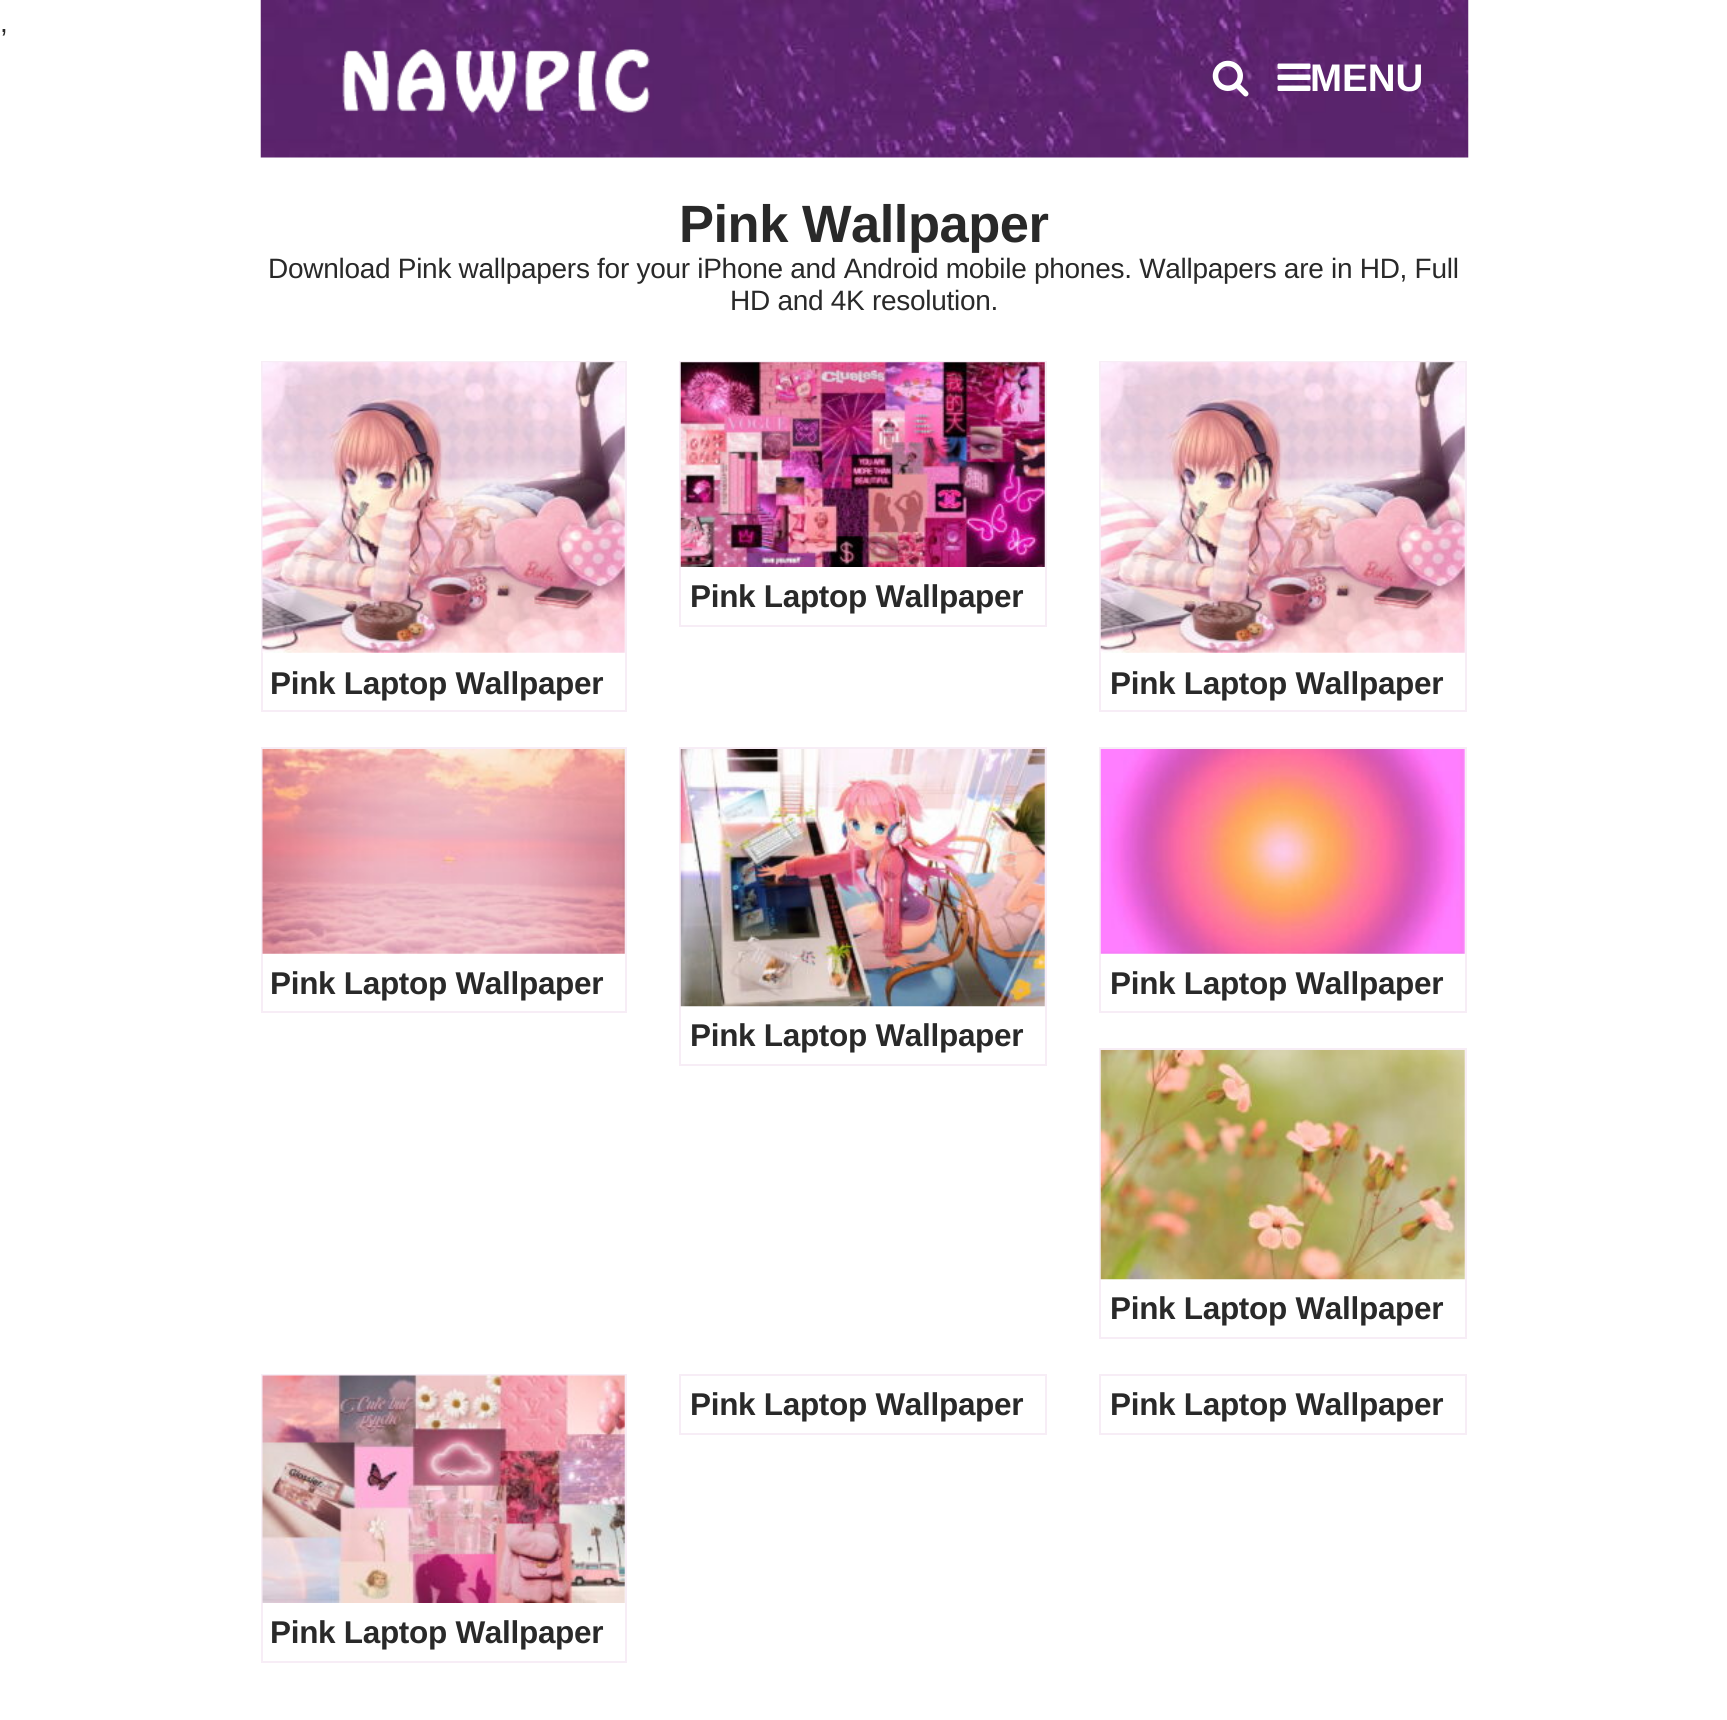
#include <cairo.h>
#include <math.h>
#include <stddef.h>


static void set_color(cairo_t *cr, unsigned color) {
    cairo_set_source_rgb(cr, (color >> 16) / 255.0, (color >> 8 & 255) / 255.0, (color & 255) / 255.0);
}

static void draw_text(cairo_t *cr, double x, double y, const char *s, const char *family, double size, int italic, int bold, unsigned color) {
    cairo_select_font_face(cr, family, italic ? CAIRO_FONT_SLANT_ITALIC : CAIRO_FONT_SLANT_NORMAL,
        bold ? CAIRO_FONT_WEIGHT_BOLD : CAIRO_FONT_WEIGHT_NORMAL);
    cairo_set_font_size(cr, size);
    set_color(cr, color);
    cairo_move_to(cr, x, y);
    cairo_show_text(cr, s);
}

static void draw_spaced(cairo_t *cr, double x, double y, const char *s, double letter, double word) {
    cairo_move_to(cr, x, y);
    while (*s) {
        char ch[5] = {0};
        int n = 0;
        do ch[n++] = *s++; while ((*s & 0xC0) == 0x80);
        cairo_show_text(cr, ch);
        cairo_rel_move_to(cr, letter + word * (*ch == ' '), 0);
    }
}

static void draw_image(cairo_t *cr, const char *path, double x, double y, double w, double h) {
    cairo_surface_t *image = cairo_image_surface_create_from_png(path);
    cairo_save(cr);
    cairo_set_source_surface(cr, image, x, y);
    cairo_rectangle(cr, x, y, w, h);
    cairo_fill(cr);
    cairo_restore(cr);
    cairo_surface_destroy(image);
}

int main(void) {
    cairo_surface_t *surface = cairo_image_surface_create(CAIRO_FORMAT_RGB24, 1727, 1720);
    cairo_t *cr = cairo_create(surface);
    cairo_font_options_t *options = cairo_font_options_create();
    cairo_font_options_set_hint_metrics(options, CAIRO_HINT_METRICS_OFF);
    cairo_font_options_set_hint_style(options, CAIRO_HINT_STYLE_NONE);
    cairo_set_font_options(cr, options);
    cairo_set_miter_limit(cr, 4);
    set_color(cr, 0xFFFFFF);
    cairo_paint(cr);
    draw_text(cr, 0, 32, ",", "Liberation Sans", 28, 0, 0, 0x292929);
    draw_image(cr, "assets/img1.png", 260, 0, 1209, 158);
    draw_image(cr, "assets/img2.png", 342, 49, 308, 64);
    draw_image(cr, "assets/img3.png", 1212, 60, 37, 37);
    draw_image(cr, "assets/img4.png", 1277, 63, 34, 28);
    draw_text(cr, 1310, 91, "MENU", "Liberation Sans", 38.5, 0, 1, 0xFFFFFF);
    cairo_set_font_size(cr, 52.5);
    set_color(cr, 0x292929);
    draw_spaced(cr, 679, 242, "Pink Wallpaper", -0.5, 0);
    cairo_select_font_face(cr, "Liberation Sans", CAIRO_FONT_SLANT_NORMAL, CAIRO_FONT_WEIGHT_NORMAL);
    cairo_set_font_size(cr, 28);
    draw_spaced(cr, 268, 278, "Download Pink wallpapers for your iPhone and Android mobile phones. Wallpapers are in HD, Full", -0.28, 0);
    draw_spaced(cr, 730, 310, "HD and 4K resolution.", -0.28, 0);
    cairo_rectangle(cr, 680, 362, 366, 264);
    set_color(cr, 0xF7EDF6);
    cairo_stroke(cr);
    draw_image(cr, "assets/img5.png", 680, 362, 365, 205);
    cairo_select_font_face(cr, "Liberation Sans", CAIRO_FONT_SLANT_NORMAL, CAIRO_FONT_WEIGHT_BOLD);
    cairo_set_font_size(cr, 31.5);
    set_color(cr, 0x292929);
    draw_spaced(cr, 690, 607, "Pink Laptop Wallpaper", -0.3, 0);
    cairo_rectangle(cr, 262, 362, 364, 349);
    set_color(cr, 0xF7EDF6);
    cairo_stroke(cr);
    draw_image(cr, "assets/img6.png", 262, 362, 363, 291);
    set_color(cr, 0x292929);
    draw_spaced(cr, 270, 694, "Pink Laptop Wallpaper", -0.3, 0);
    cairo_rectangle(cr, 1100, 362, 366, 349);
    set_color(cr, 0xF7EDF6);
    cairo_stroke(cr);
    draw_image(cr, "assets/img7.png", 1100, 362, 365, 291);
    set_color(cr, 0x292929);
    draw_spaced(cr, 1110, 694, "Pink Laptop Wallpaper", -0.3, 0);
    cairo_rectangle(cr, 262, 748, 364, 264);
    set_color(cr, 0xF7EDF6);
    cairo_stroke(cr);
    draw_image(cr, "assets/img8.png", 262, 749, 363, 205);
    set_color(cr, 0x292929);
    draw_spaced(cr, 270, 994, "Pink Laptop Wallpaper", -0.3, 0);
    cairo_rectangle(cr, 1100, 748, 366, 264);
    set_color(cr, 0xF7EDF6);
    cairo_stroke(cr);
    draw_image(cr, "assets/img9.png", 1100, 749, 365, 205);
    set_color(cr, 0x292929);
    draw_spaced(cr, 1110, 994, "Pink Laptop Wallpaper", -0.3, 0);
    cairo_rectangle(cr, 680, 748, 366, 317);
    set_color(cr, 0xF7EDF6);
    cairo_stroke(cr);
    draw_image(cr, "assets/img10.png", 680, 749, 365, 258);
    set_color(cr, 0x292929);
    draw_spaced(cr, 690, 1046, "Pink Laptop Wallpaper", -0.3, 0);
    cairo_rectangle(cr, 1100, 1049, 366, 289);
    set_color(cr, 0xF7EDF6);
    cairo_stroke(cr);
    draw_image(cr, "assets/img11.png", 1100, 1050, 365, 230);
    set_color(cr, 0x292929);
    draw_spaced(cr, 1110, 1319, "Pink Laptop Wallpaper", -0.3, 0);
    cairo_rectangle(cr, 680, 1375, 366, 59);
    set_color(cr, 0xF7EDF6);
    cairo_stroke(cr);
    set_color(cr, 0x292929);
    draw_spaced(cr, 690, 1415, "Pink Laptop Wallpaper", -0.3, 0);
    cairo_rectangle(cr, 1100, 1375, 366, 59);
    set_color(cr, 0xF7EDF6);
    cairo_stroke(cr);
    set_color(cr, 0x292929);
    draw_spaced(cr, 1110, 1415, "Pink Laptop Wallpaper", -0.3, 0);
    cairo_rectangle(cr, 262, 1375, 364, 287);
    set_color(cr, 0xF7EDF6);
    cairo_stroke(cr);
    draw_image(cr, "assets/img12.png", 262, 1375, 363, 228);
    set_color(cr, 0x292929);
    draw_spaced(cr, 270, 1643, "Pink Laptop Wallpaper", -0.3, 0);
    cairo_surface_write_to_png(surface, "output.png");
    cairo_font_options_destroy(options);
    cairo_destroy(cr);
    cairo_surface_destroy(surface);
    return 0;
}
